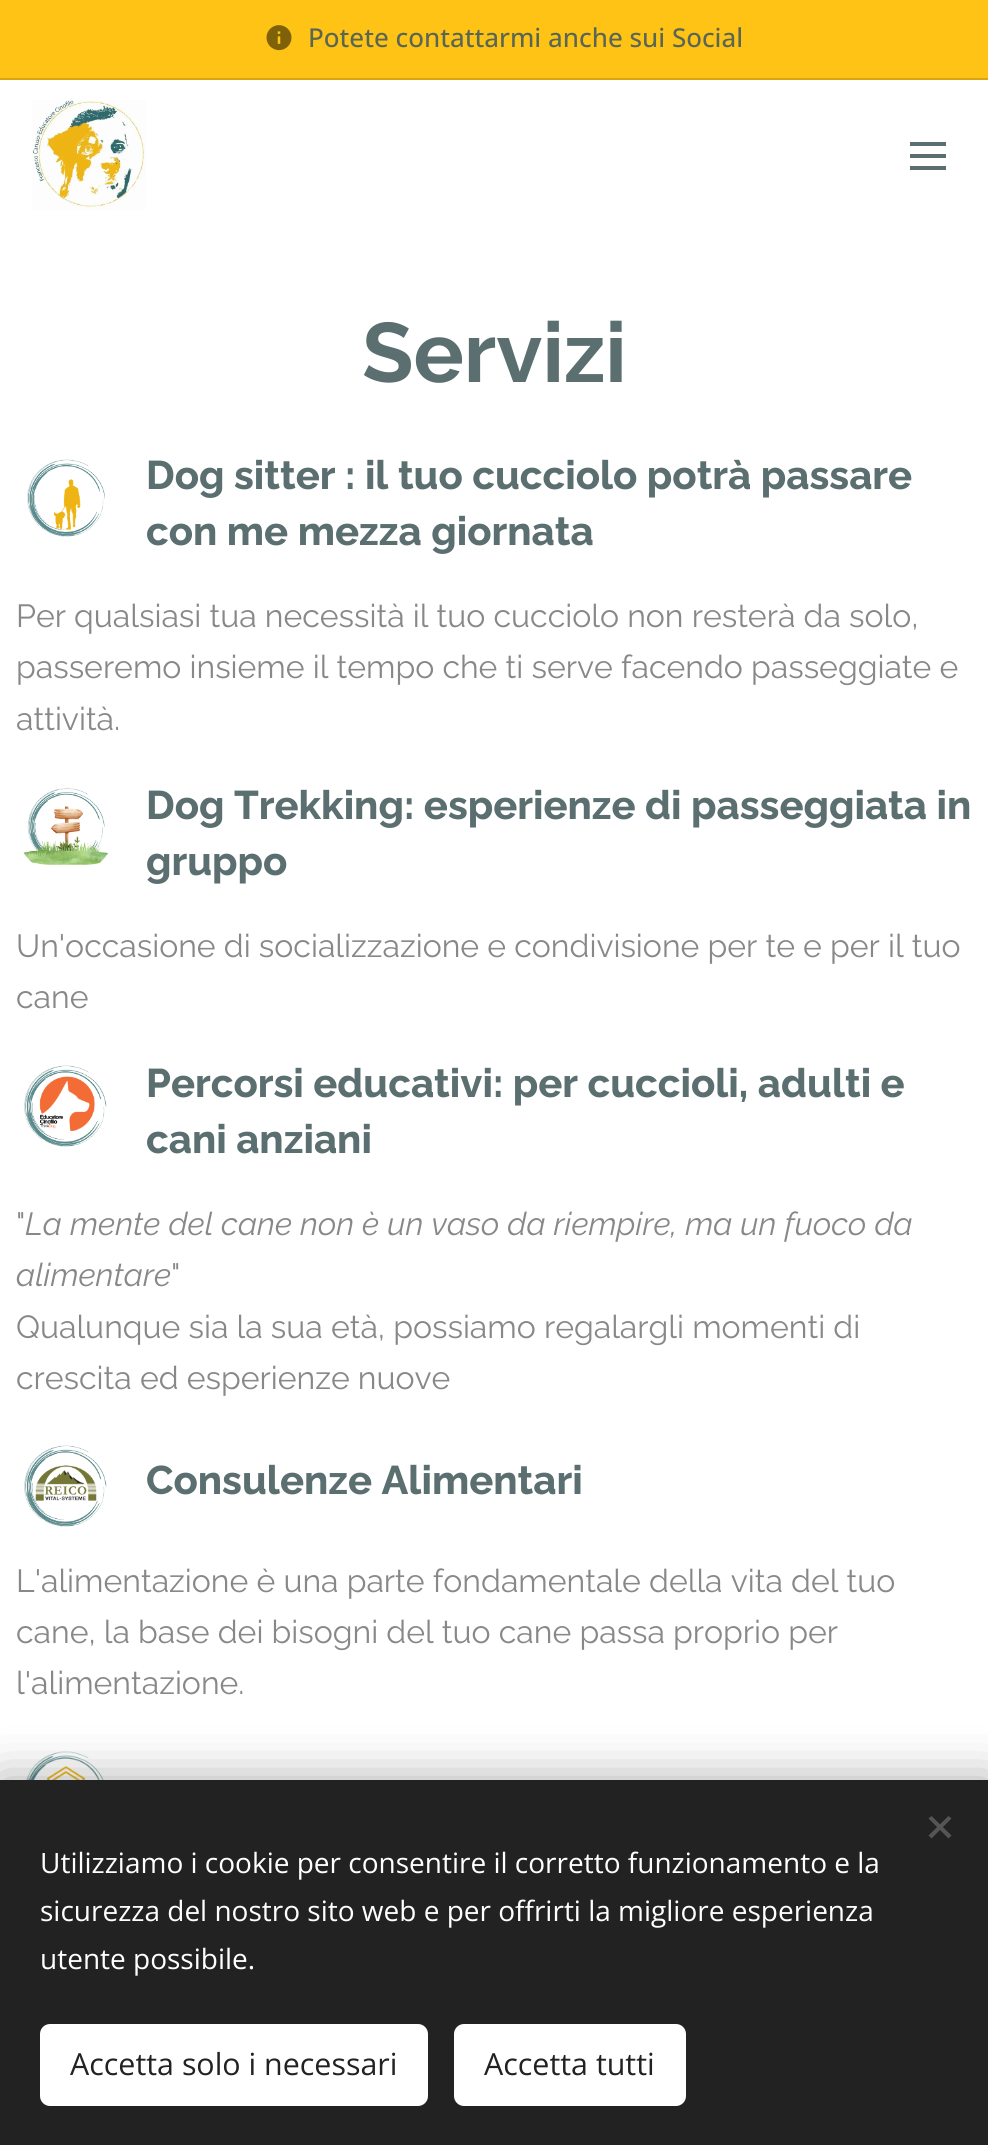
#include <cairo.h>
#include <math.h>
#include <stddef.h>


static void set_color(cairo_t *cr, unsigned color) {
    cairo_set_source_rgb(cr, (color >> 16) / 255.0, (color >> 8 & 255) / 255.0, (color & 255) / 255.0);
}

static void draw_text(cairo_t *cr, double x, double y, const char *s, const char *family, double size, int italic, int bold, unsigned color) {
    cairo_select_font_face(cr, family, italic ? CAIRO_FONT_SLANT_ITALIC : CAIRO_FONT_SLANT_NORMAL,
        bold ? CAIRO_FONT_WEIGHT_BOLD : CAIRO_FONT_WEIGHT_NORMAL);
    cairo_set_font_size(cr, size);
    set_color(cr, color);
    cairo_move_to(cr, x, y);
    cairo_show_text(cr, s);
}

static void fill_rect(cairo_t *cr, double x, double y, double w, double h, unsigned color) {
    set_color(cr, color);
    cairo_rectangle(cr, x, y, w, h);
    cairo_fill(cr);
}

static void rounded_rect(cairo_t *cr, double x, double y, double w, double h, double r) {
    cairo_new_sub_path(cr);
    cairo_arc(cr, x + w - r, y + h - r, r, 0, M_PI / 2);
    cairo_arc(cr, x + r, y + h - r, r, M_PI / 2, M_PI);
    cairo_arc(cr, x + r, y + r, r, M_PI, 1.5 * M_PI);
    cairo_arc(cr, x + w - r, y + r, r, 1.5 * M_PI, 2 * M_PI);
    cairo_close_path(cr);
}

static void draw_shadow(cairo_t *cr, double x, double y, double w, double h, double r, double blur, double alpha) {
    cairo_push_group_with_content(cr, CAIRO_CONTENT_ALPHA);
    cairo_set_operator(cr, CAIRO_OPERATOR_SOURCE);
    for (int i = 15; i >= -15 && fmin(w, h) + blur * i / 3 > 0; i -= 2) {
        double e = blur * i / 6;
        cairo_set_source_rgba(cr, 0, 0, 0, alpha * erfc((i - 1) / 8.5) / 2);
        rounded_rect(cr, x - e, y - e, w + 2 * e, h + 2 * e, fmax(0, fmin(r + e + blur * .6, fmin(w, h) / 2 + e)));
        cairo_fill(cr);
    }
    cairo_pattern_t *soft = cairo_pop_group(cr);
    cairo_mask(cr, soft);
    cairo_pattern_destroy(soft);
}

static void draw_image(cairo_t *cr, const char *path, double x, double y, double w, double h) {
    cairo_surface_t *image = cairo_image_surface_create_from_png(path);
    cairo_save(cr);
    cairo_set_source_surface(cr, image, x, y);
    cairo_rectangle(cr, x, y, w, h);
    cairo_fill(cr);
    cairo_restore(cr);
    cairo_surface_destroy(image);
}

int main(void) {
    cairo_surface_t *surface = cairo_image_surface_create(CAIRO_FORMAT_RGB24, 988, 2145);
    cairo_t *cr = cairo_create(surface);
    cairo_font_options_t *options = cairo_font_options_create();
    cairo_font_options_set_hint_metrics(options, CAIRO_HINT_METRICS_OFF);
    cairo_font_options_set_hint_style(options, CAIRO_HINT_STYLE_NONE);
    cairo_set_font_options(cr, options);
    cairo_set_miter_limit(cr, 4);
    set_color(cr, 0xFFFFFF);
    cairo_paint(cr);
    fill_rect(cr, 0, 0, 988, 78, 0xFFC315);
    draw_image(cr, "assets/img1.png", 266, 25, 26, 26);
    draw_text(cr, 308, 47, "Potete contattarmi anche sui Social", "Open Sans Medium", 26, 0, 0, 0x596555);
    fill_rect(cr, 0, 78, 988, 2, 0xD9A612);
    draw_image(cr, "assets/img2.png", 32, 100, 114, 110);
    fill_rect(cr, 910, 154, 36, 4, 0x5B6F70);
    fill_rect(cr, 910, 142, 36, 4, 0x5B6F70);
    fill_rect(cr, 910, 166, 36, 4, 0x5B6F70);
    draw_text(cr, 362, 382, "Servizi", "Raleway", 84, 0, 1, 0x5B6F70);
    draw_text(cr, 146, 489, "Dog sitter : il tuo cucciolo potrà passare", "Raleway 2", 40, 0, 1, 0x5B6F70);
    draw_text(cr, 146, 545, "con me mezza giornata", "Raleway 2", 40, 0, 1, 0x5B6F70);
    draw_text(cr, 16, 627, "Per qualsiasi tua necessità il tuo cucciolo non resterà da solo,", "Raleway", 32, 0, 0, 0x888888);
    draw_text(cr, 16, 678, "passeremo insieme il tempo che ti serve facendo passeggiate e", "Raleway", 32, 0, 0, 0x888888);
    draw_text(cr, 16, 730, "attività.", "Raleway", 32, 0, 0, 0x888888);
    draw_image(cr, "assets/img3.png", 27, 459, 78, 78);
    draw_image(cr, "assets/img4.png", 23, 788, 85, 77);
    draw_text(cr, 146, 819, "Dog Trekking: esperienze di passeggiata in", "Raleway 2", 40, 0, 1, 0x5B6F70);
    draw_text(cr, 146, 875, "gruppo", "Raleway 2", 40, 0, 1, 0x5B6F70);
    draw_text(cr, 16, 957, "Un'occasione di socializzazione e condivisione per te e per il tuo", "Raleway", 32, 0, 0, 0x888888);
    draw_text(cr, 16, 1008, "cane", "Raleway", 32, 0, 0, 0x888888);
    draw_image(cr, "assets/img5.png", 24, 1065, 83, 82);
    draw_text(cr, 146, 1097, "Percorsi educativi: per cuccioli, adulti e", "Raleway 2", 40, 0, 1, 0x5B6F70);
    draw_text(cr, 146, 1153, "cani anziani", "Raleway 2", 40, 0, 1, 0x5B6F70);
    draw_text(cr, 16, 1235, "\"", "Raleway", 32, 0, 0, 0x888888);
    draw_text(cr, 25, 1235, "La mente del cane non è un vaso da riempire, ma un fuoco da", "Raleway", 32, 1, 0, 0x888888);
    draw_text(cr, 16, 1286, "alimentare", "Raleway", 32, 1, 0, 0x888888);
    draw_text(cr, 171, 1286, "\"", "Raleway", 32, 0, 0, 0x888888);
    draw_text(cr, 16, 1338, "Qualunque sia la sua età, possiamo regalargli momenti di", "Raleway", 32, 0, 0, 0x888888);
    draw_text(cr, 16, 1389, "crescita ed esperienze nuove", "Raleway", 32, 0, 0, 0x888888);
    draw_image(cr, "assets/img6.png", 24, 1445, 83, 82);
    draw_text(cr, 146, 1494, "Consulenze Alimentari", "Raleway 2", 40, 0, 1, 0x5B6F70);
    draw_text(cr, 16, 1592, "L'alimentazione è una parte fondamentale della vita del tuo", "Raleway", 32, 0, 0, 0x888888);
    draw_text(cr, 16, 1643, "cane, la base dei bisogni del tuo cane passa proprio per", "Raleway", 32, 0, 0, 0x888888);
    draw_text(cr, 16, 1694, "l'alimentazione.", "Raleway", 32, 0, 0, 0x888888);
    draw_image(cr, "assets/img7.png", 26, 1751, 78, 29);
    set_color(cr, 0x000000);
    draw_shadow(cr, 0, 1780, 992, 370, 0, 25, 0.33);
    fill_rect(cr, 0, 1780, 988, 365, 0x222222);
    set_color(cr, 0x555555);
    cairo_new_path(cr);
    cairo_move_to(cr, 928.5, 1835.5);
    cairo_line_to(cr, 948.5, 1816);
    cairo_line_to(cr, 951.5, 1818.5);
    cairo_line_to(cr, 931.5, 1838.5);
    cairo_close_path(cr);
    cairo_fill(cr);
    cairo_new_path(cr);
    cairo_move_to(cr, 931.5, 1816);
    cairo_line_to(cr, 951.5, 1835.5);
    cairo_line_to(cr, 948.5, 1838.5);
    cairo_line_to(cr, 928.5, 1818.5);
    cairo_close_path(cr);
    cairo_fill(cr);
    draw_text(cr, 40, 1873, "Utilizziamo i cookie per consentire il corretto funzionamento e la", "Open Sans", 28, 0, 0, 0xFFFFFF);
    draw_text(cr, 40, 1921, "sicurezza del nostro sito web e per offrirti la migliore esperienza", "Open Sans", 28, 0, 0, 0xFFFFFF);
    draw_text(cr, 40, 1969, "utente possibile.", "Open Sans", 28, 0, 0, 0xFFFFFF);
    rounded_rect(cr, 40, 2024, 388, 82, 10);
    cairo_fill(cr);
    draw_text(cr, 70, 2075, "Accetta solo i necessari", "Open Sans", 30.4, 0, 0, 0x222222);
    set_color(cr, 0xFFFFFF);
    rounded_rect(cr, 454, 2024, 232, 82, 10);
    cairo_fill(cr);
    draw_text(cr, 484, 2075, "Accetta tutti", "Open Sans", 30.4, 0, 0, 0x222222);
    cairo_surface_write_to_png(surface, "output.png");
    cairo_font_options_destroy(options);
    cairo_destroy(cr);
    cairo_surface_destroy(surface);
    return 0;
}
